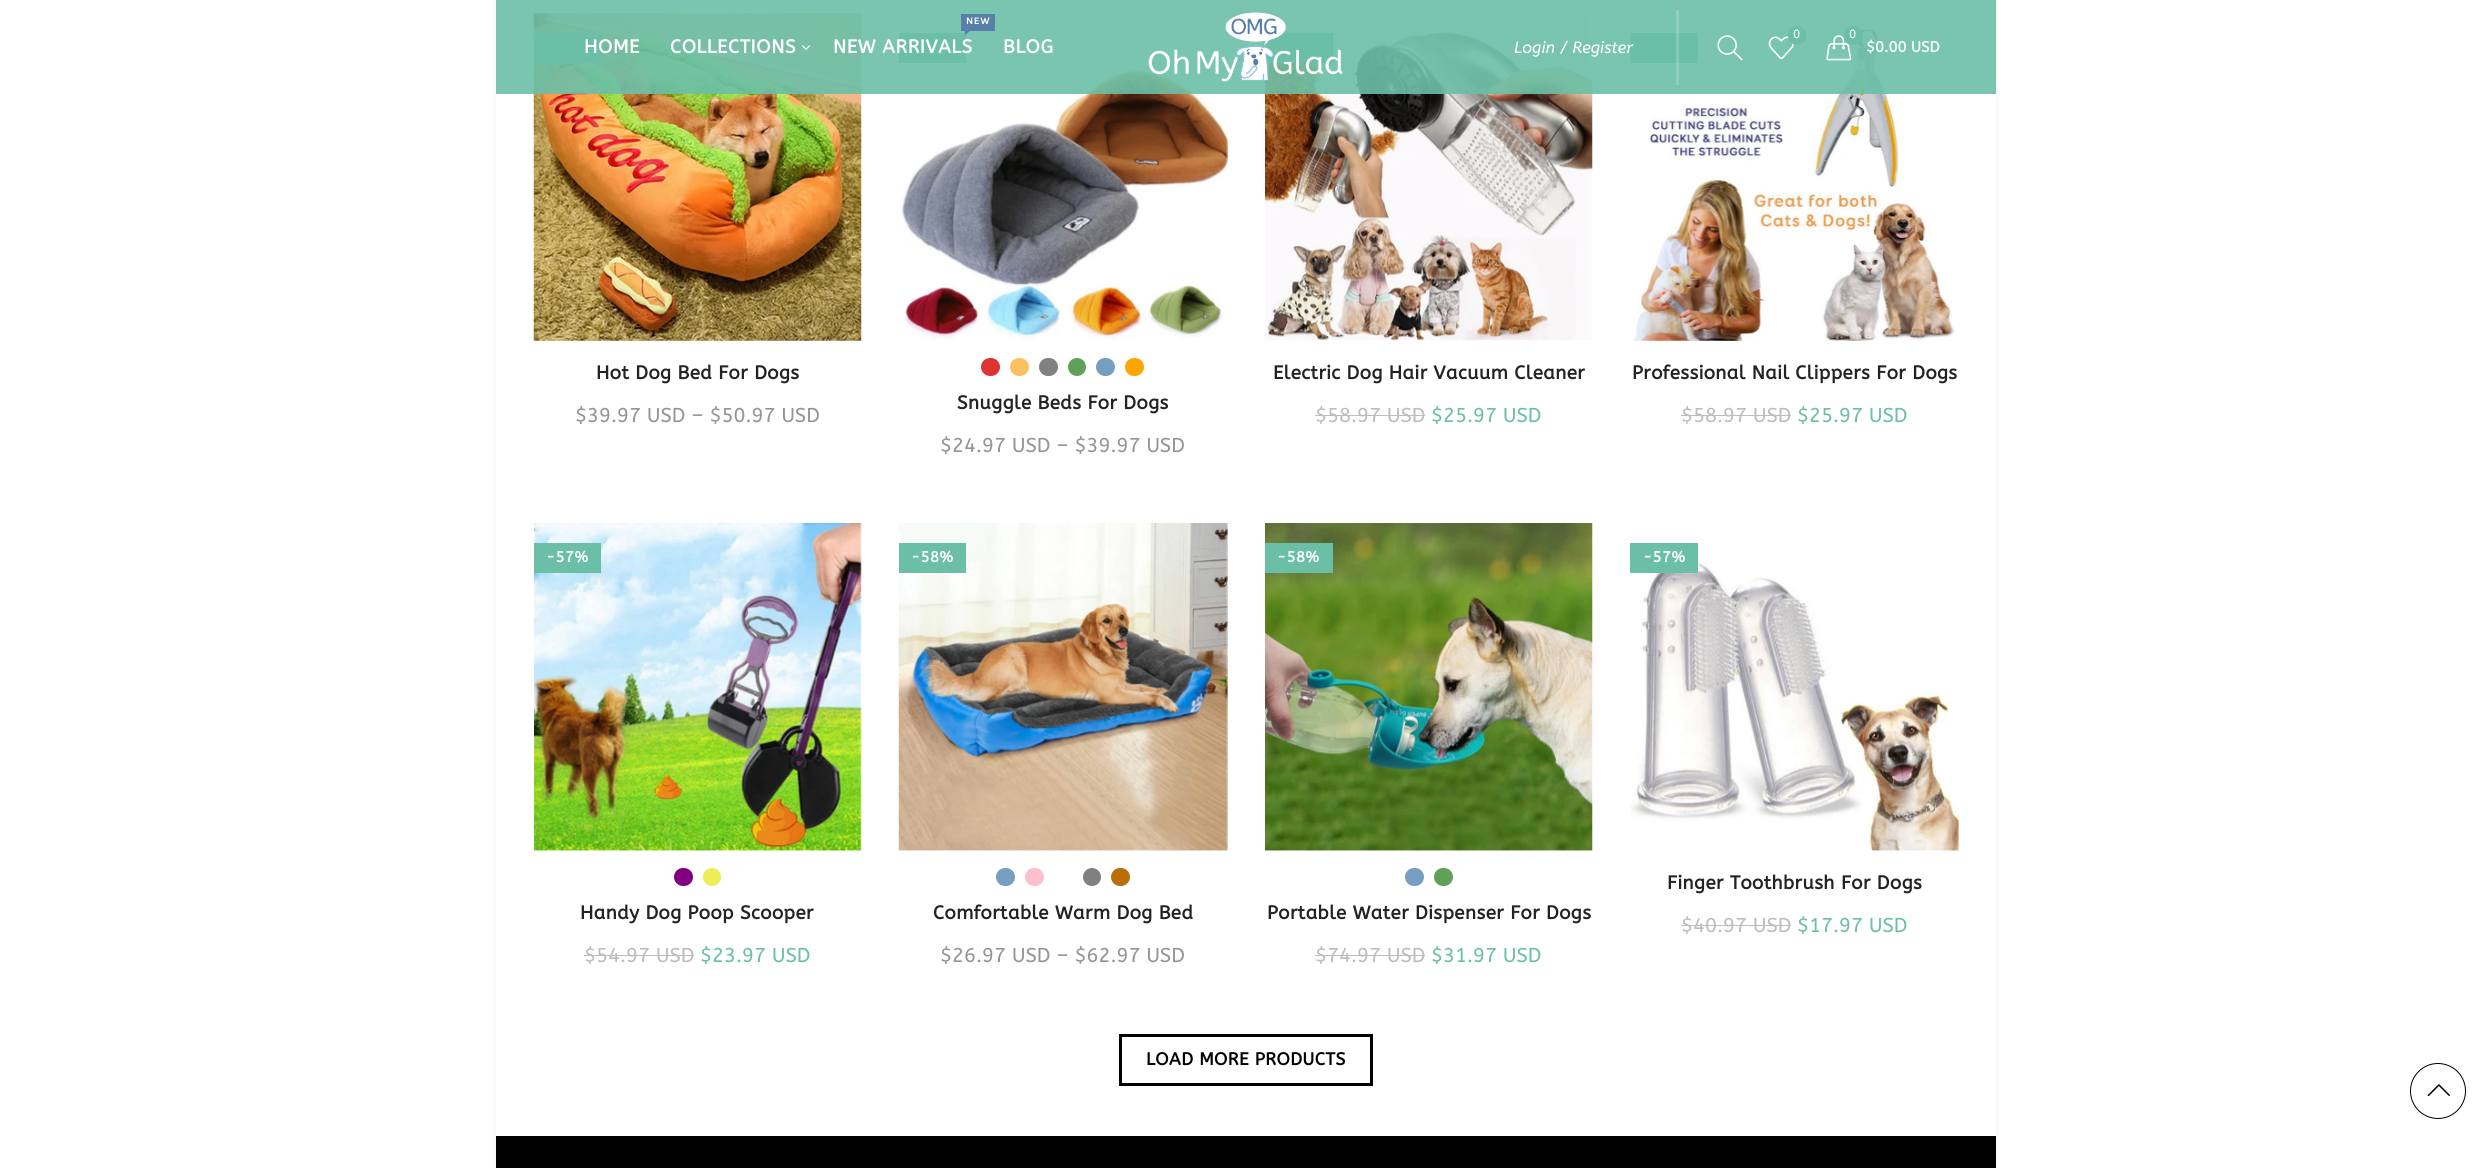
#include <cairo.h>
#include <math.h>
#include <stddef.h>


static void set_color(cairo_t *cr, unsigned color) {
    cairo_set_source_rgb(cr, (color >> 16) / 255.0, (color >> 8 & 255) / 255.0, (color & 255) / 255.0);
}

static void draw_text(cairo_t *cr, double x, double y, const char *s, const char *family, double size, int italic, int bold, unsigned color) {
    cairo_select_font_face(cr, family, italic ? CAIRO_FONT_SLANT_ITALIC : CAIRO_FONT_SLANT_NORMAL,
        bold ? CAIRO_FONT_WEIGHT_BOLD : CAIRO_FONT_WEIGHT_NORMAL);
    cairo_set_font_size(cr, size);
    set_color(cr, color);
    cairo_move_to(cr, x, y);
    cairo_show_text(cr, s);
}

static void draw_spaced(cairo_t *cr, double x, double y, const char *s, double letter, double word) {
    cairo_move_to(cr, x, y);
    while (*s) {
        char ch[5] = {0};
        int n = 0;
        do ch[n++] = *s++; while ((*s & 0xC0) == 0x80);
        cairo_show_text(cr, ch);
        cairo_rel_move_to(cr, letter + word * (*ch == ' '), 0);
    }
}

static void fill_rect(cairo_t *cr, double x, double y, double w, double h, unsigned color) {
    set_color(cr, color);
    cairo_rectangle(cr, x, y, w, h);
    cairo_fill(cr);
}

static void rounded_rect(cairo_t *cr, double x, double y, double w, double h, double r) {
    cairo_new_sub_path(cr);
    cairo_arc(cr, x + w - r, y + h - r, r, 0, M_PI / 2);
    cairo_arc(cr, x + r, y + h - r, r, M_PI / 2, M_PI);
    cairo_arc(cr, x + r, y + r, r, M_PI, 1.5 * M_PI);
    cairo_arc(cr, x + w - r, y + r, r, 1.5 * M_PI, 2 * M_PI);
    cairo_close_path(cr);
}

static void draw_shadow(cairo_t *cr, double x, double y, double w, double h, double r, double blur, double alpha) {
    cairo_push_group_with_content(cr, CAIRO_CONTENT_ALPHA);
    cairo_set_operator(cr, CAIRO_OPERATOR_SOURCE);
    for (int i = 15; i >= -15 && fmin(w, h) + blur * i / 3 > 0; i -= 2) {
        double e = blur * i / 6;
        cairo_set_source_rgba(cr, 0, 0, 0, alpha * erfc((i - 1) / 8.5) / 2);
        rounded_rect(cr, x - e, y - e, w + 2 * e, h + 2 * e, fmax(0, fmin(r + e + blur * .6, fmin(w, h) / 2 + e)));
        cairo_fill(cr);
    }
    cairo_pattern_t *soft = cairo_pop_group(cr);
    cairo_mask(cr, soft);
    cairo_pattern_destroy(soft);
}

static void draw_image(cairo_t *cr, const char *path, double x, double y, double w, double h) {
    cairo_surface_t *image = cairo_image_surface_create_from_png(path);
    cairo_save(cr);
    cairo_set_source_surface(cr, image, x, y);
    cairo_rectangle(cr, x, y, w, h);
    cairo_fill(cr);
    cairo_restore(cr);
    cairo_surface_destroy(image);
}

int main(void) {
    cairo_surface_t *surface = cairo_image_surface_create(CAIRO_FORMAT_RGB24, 2491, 1168);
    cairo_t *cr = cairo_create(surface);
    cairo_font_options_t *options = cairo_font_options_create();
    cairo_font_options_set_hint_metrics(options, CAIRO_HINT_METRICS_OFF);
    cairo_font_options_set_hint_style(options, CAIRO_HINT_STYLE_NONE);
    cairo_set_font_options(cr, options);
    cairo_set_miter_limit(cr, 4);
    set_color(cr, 0xFFFFFF);
    cairo_paint(cr);
    set_color(cr, 0xBEBEBE);
    draw_shadow(cr, 496, -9, 1500, 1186, 0, 3, 0.26);
    fill_rect(cr, 496, 0, 1500, 1136, 0xFFFFFF);
    draw_image(cr, "assets/img7.png", 533, 13, 329, 328);
    fill_rect(cr, 534, 33, 67, 30, 0x6BBFA7);
    fill_rect(cr, 899, 33, 67, 30, 0x6BBFA7);
    draw_image(cr, "assets/img8.png", 901, 68, 327, 272);
    draw_image(cr, "assets/img9.png", 1265, 13, 328, 328);
    fill_rect(cr, 1265, 33, 68, 30, 0x6BBFA7);
    draw_image(cr, "assets/img10.png", 1633, 28, 323, 313);
    fill_rect(cr, 1630, 33, 68, 30, 0x6BBFA7);
    cairo_set_source_rgba(cr, 0.42, 0.749, 0.655, 0.9);
    cairo_rectangle(cr, 496, 0, 1500, 94);
    cairo_fill(cr);
    cairo_select_font_face(cr, "ABeeZee", CAIRO_FONT_SLANT_NORMAL, CAIRO_FONT_WEIGHT_BOLD);
    cairo_set_font_size(cr, 18.75);
    set_color(cr, 0xFFFFFF);
    draw_spaced(cr, 584, 53, "HOME", 0.6, 0);
    draw_spaced(cr, 670, 53, "COLLECTIONS", 0.6, 0);
    draw_image(cr, "assets/img1.png", 802, 45, 9, 5);
    fill_rect(cr, 961, 14, 34, 17, 0x587FAA);
    cairo_select_font_face(cr, "Karla", CAIRO_FONT_SLANT_NORMAL, CAIRO_FONT_WEIGHT_BOLD);
    cairo_set_font_size(cr, 10);
    set_color(cr, 0xFFFFFF);
    draw_spaced(cr, 966, 24, "NEW", 0.6, 0);
    draw_image(cr, "assets/img2.png", 965, 31, 5, 4);
    cairo_select_font_face(cr, "ABeeZee", CAIRO_FONT_SLANT_NORMAL, CAIRO_FONT_WEIGHT_BOLD);
    cairo_set_font_size(cr, 18.75);
    draw_spaced(cr, 833, 53, "NEW ARRIVALS", 0.6, 0);
    draw_spaced(cr, 1003, 53, "BLOG", 0.6, 0);
    draw_image(cr, "assets/img3.png", 1148, 12, 195, 70);
    cairo_set_source_rgba(cr, 0.961, 0.961, 0.961, 0.2);
    cairo_rectangle(cr, 1676, 10, 3, 75);
    cairo_fill(cr);
    draw_text(cr, 1514, 53, "Login / Register", "ABeeZee", 16.25, 1, 0, 0xFFFFFF);
    draw_image(cr, "assets/img4.png", 1717, 35, 26, 26);
    draw_image(cr, "assets/img5.png", 1768, 36, 26, 24);
    set_color(cr, 0x6BBFA7);
    rounded_rect(cr, 1788, 26, 18, 19, 9);
    cairo_fill(cr);
    draw_text(cr, 1793, 38, "0", "ABeeZee", 12, 0, 0, 0xFFFFFF);
    draw_image(cr, "assets/img6.png", 1826, 35, 26, 26);
    set_color(cr, 0x6BBFA7);
    cairo_arc(cr, 1853.5, 35.5, 9.5, 0, 2 * M_PI);
    cairo_fill(cr);
    draw_text(cr, 1849, 38, "0", "ABeeZee", 12, 0, 0, 0xFFFFFF);
    draw_text(cr, 1866, 52, "$0.00 USD", "ABeeZee", 15, 0, 1, 0xF2F9F7);
    cairo_set_font_size(cr, 18.75);
    set_color(cr, 0x252222);
    draw_spaced(cr, 596, 379, "Hot Dog Bed For Dogs", 0.4, 0);
    draw_text(cr, 575, 422, "$39.97 USD – $50.97 USD", "ABeeZee", 20, 0, 0, 0x949494);
    set_color(cr, 0xDD3333);
    rounded_rect(cr, 981, 358, 19, 18, 9);
    cairo_fill(cr);
    set_color(cr, 0xFAC062);
    rounded_rect(cr, 1010, 358, 19, 18, 9);
    cairo_fill(cr);
    set_color(cr, 0x808080);
    rounded_rect(cr, 1039, 358, 19, 18, 9);
    cairo_fill(cr);
    set_color(cr, 0x61A058);
    cairo_arc(cr, 1077, 367, 9, 0, 2 * M_PI);
    cairo_fill(cr);
    set_color(cr, 0x769EC1);
    rounded_rect(cr, 1096, 358, 19, 18, 9);
    cairo_fill(cr);
    set_color(cr, 0xFFA500);
    rounded_rect(cr, 1125, 358, 19, 18, 9);
    cairo_fill(cr);
    cairo_select_font_face(cr, "ABeeZee", CAIRO_FONT_SLANT_NORMAL, CAIRO_FONT_WEIGHT_BOLD);
    cairo_set_font_size(cr, 18.75);
    set_color(cr, 0x252222);
    draw_spaced(cr, 957, 409, "Snuggle Beds For Dogs", 0.4, 0);
    draw_text(cr, 940, 452, "$24.97 USD – $39.97 USD", "ABeeZee", 20, 0, 0, 0x949494);
    cairo_select_font_face(cr, "ABeeZee", CAIRO_FONT_SLANT_NORMAL, CAIRO_FONT_WEIGHT_BOLD);
    cairo_set_font_size(cr, 18.75);
    set_color(cr, 0x252222);
    draw_spaced(cr, 1273, 379, "Electric Dog Hair Vacuum Cleaner", 0.4, 0);
    draw_text(cr, 1315, 422, "$58.97 USD", "ABeeZee", 20, 0, 0, 0xBDBDBD);
    fill_rect(cr, 1315, 415, 110, 1, 0xBDBDBD);
    draw_text(cr, 1431, 422, "$25.97 USD", "ABeeZee", 20, 0, 0, 0x6BBFA7);
    cairo_select_font_face(cr, "ABeeZee", CAIRO_FONT_SLANT_NORMAL, CAIRO_FONT_WEIGHT_BOLD);
    cairo_set_font_size(cr, 18.75);
    set_color(cr, 0x252222);
    draw_spaced(cr, 1632, 379, "Professional Nail Clippers For Dogs", 0.4, 0);
    draw_text(cr, 1681, 422, "$58.97 USD", "ABeeZee", 20, 0, 0, 0xBDBDBD);
    fill_rect(cr, 1681, 415, 110, 1, 0xBDBDBD);
    draw_text(cr, 1797, 422, "$25.97 USD", "ABeeZee", 20, 0, 0, 0x6BBFA7);
    draw_image(cr, "assets/img11.png", 534, 523, 328, 328);
    fill_rect(cr, 534, 543, 67, 30, 0x6BBFA7);
    cairo_select_font_face(cr, "ABeeZee", CAIRO_FONT_SLANT_NORMAL, CAIRO_FONT_WEIGHT_BOLD);
    cairo_set_font_size(cr, 15);
    set_color(cr, 0xFFFFFF);
    draw_spaced(cr, 546, 562, "-57%", 0.5, 0);
    set_color(cr, 0x800080);
    rounded_rect(cr, 674, 868, 19, 18, 9);
    cairo_fill(cr);
    set_color(cr, 0xEDED55);
    cairo_arc(cr, 712, 877, 9, 0, 2 * M_PI);
    cairo_fill(cr);
    cairo_set_font_size(cr, 18.75);
    set_color(cr, 0x252222);
    draw_spaced(cr, 580, 919, "Handy Dog Poop Scooper", 0.4, 0);
    draw_text(cr, 584, 962, "$54.97 USD", "ABeeZee", 20, 0, 0, 0xBDBDBD);
    fill_rect(cr, 584, 955, 110, 1, 0xBDBDBD);
    draw_text(cr, 700, 962, "$23.97 USD", "ABeeZee", 20, 0, 0, 0x6BBFA7);
    draw_image(cr, "assets/img12.png", 898, 523, 330, 328);
    fill_rect(cr, 899, 543, 67, 30, 0x6BBFA7);
    cairo_select_font_face(cr, "ABeeZee", CAIRO_FONT_SLANT_NORMAL, CAIRO_FONT_WEIGHT_BOLD);
    cairo_set_font_size(cr, 15);
    set_color(cr, 0xFFFFFF);
    draw_spaced(cr, 911, 562, "-58%", 0.5, 0);
    set_color(cr, 0x769EC1);
    rounded_rect(cr, 996, 868, 19, 18, 9);
    cairo_fill(cr);
    set_color(cr, 0xFFC0CB);
    rounded_rect(cr, 1025, 868, 19, 18, 9);
    cairo_fill(cr);
    set_color(cr, 0x808080);
    cairo_arc(cr, 1092, 877, 9, 0, 2 * M_PI);
    cairo_fill(cr);
    set_color(cr, 0xBA6D09);
    rounded_rect(cr, 1111, 868, 19, 18, 9);
    cairo_fill(cr);
    cairo_set_font_size(cr, 18.75);
    set_color(cr, 0x252222);
    draw_spaced(cr, 933, 919, "Comfortable Warm Dog Bed", 0.4, 0);
    draw_text(cr, 940, 962, "$26.97 USD – $62.97 USD", "ABeeZee", 20, 0, 0, 0x949494);
    draw_image(cr, "assets/img13.png", 1265, 523, 328, 328);
    fill_rect(cr, 1265, 543, 68, 30, 0x6BBFA7);
    cairo_select_font_face(cr, "ABeeZee", CAIRO_FONT_SLANT_NORMAL, CAIRO_FONT_WEIGHT_BOLD);
    cairo_set_font_size(cr, 15);
    set_color(cr, 0xFFFFFF);
    draw_spaced(cr, 1277, 562, "-58%", 0.5, 0);
    set_color(cr, 0x769EC1);
    rounded_rect(cr, 1405, 868, 19, 18, 9);
    cairo_fill(cr);
    set_color(cr, 0x61A058);
    rounded_rect(cr, 1434, 868, 19, 18, 9);
    cairo_fill(cr);
    cairo_set_font_size(cr, 18.75);
    set_color(cr, 0x252222);
    draw_spaced(cr, 1267, 919, "Portable Water Dispenser For Dogs", 0.4, 0);
    draw_text(cr, 1315, 962, "$74.97 USD", "ABeeZee", 20, 0, 0, 0xBDBDBD);
    fill_rect(cr, 1315, 955, 110, 1, 0xBDBDBD);
    draw_text(cr, 1431, 962, "$31.97 USD", "ABeeZee", 20, 0, 0, 0x6BBFA7);
    draw_image(cr, "assets/img14.png", 1630, 560, 329, 291);
    fill_rect(cr, 1630, 543, 68, 30, 0x6BBFA7);
    cairo_select_font_face(cr, "ABeeZee", CAIRO_FONT_SLANT_NORMAL, CAIRO_FONT_WEIGHT_BOLD);
    cairo_set_font_size(cr, 15);
    set_color(cr, 0xFFFFFF);
    draw_spaced(cr, 1643, 562, "-57%", 0.5, 0);
    cairo_set_font_size(cr, 18.75);
    set_color(cr, 0x252222);
    draw_spaced(cr, 1667, 889, "Finger Toothbrush For Dogs", 0.4, 0);
    draw_text(cr, 1681, 932, "$40.97 USD", "ABeeZee", 20, 0, 0, 0xBDBDBD);
    fill_rect(cr, 1681, 925, 110, 1, 0xBDBDBD);
    draw_text(cr, 1797, 932, "$17.97 USD", "ABeeZee", 20, 0, 0, 0x6BBFA7);
    cairo_rectangle(cr, 1120.5, 1035.5, 251, 49);
    set_color(cr, 0x000000);
    cairo_set_line_width(cr, 3);
    cairo_stroke(cr);
    cairo_select_font_face(cr, "ABeeZee", CAIRO_FONT_SLANT_NORMAL, CAIRO_FONT_WEIGHT_BOLD);
    cairo_set_font_size(cr, 17.5);
    draw_spaced(cr, 1146, 1065, "LOAD MORE PRODUCTS", 0.4, 0);
    fill_rect(cr, 496, 1136, 1500, 32, 0x000000);
    cairo_new_path(cr);
    cairo_arc(cr, 2438, 1091, 27.5, 0, 2 * M_PI);
    cairo_set_line_width(cr, 1);
    cairo_stroke(cr);
    draw_image(cr, "assets/img15.png", 2427, 1084, 23, 13);
    cairo_surface_write_to_png(surface, "output.png");
    cairo_font_options_destroy(options);
    cairo_destroy(cr);
    cairo_surface_destroy(surface);
    return 0;
}
